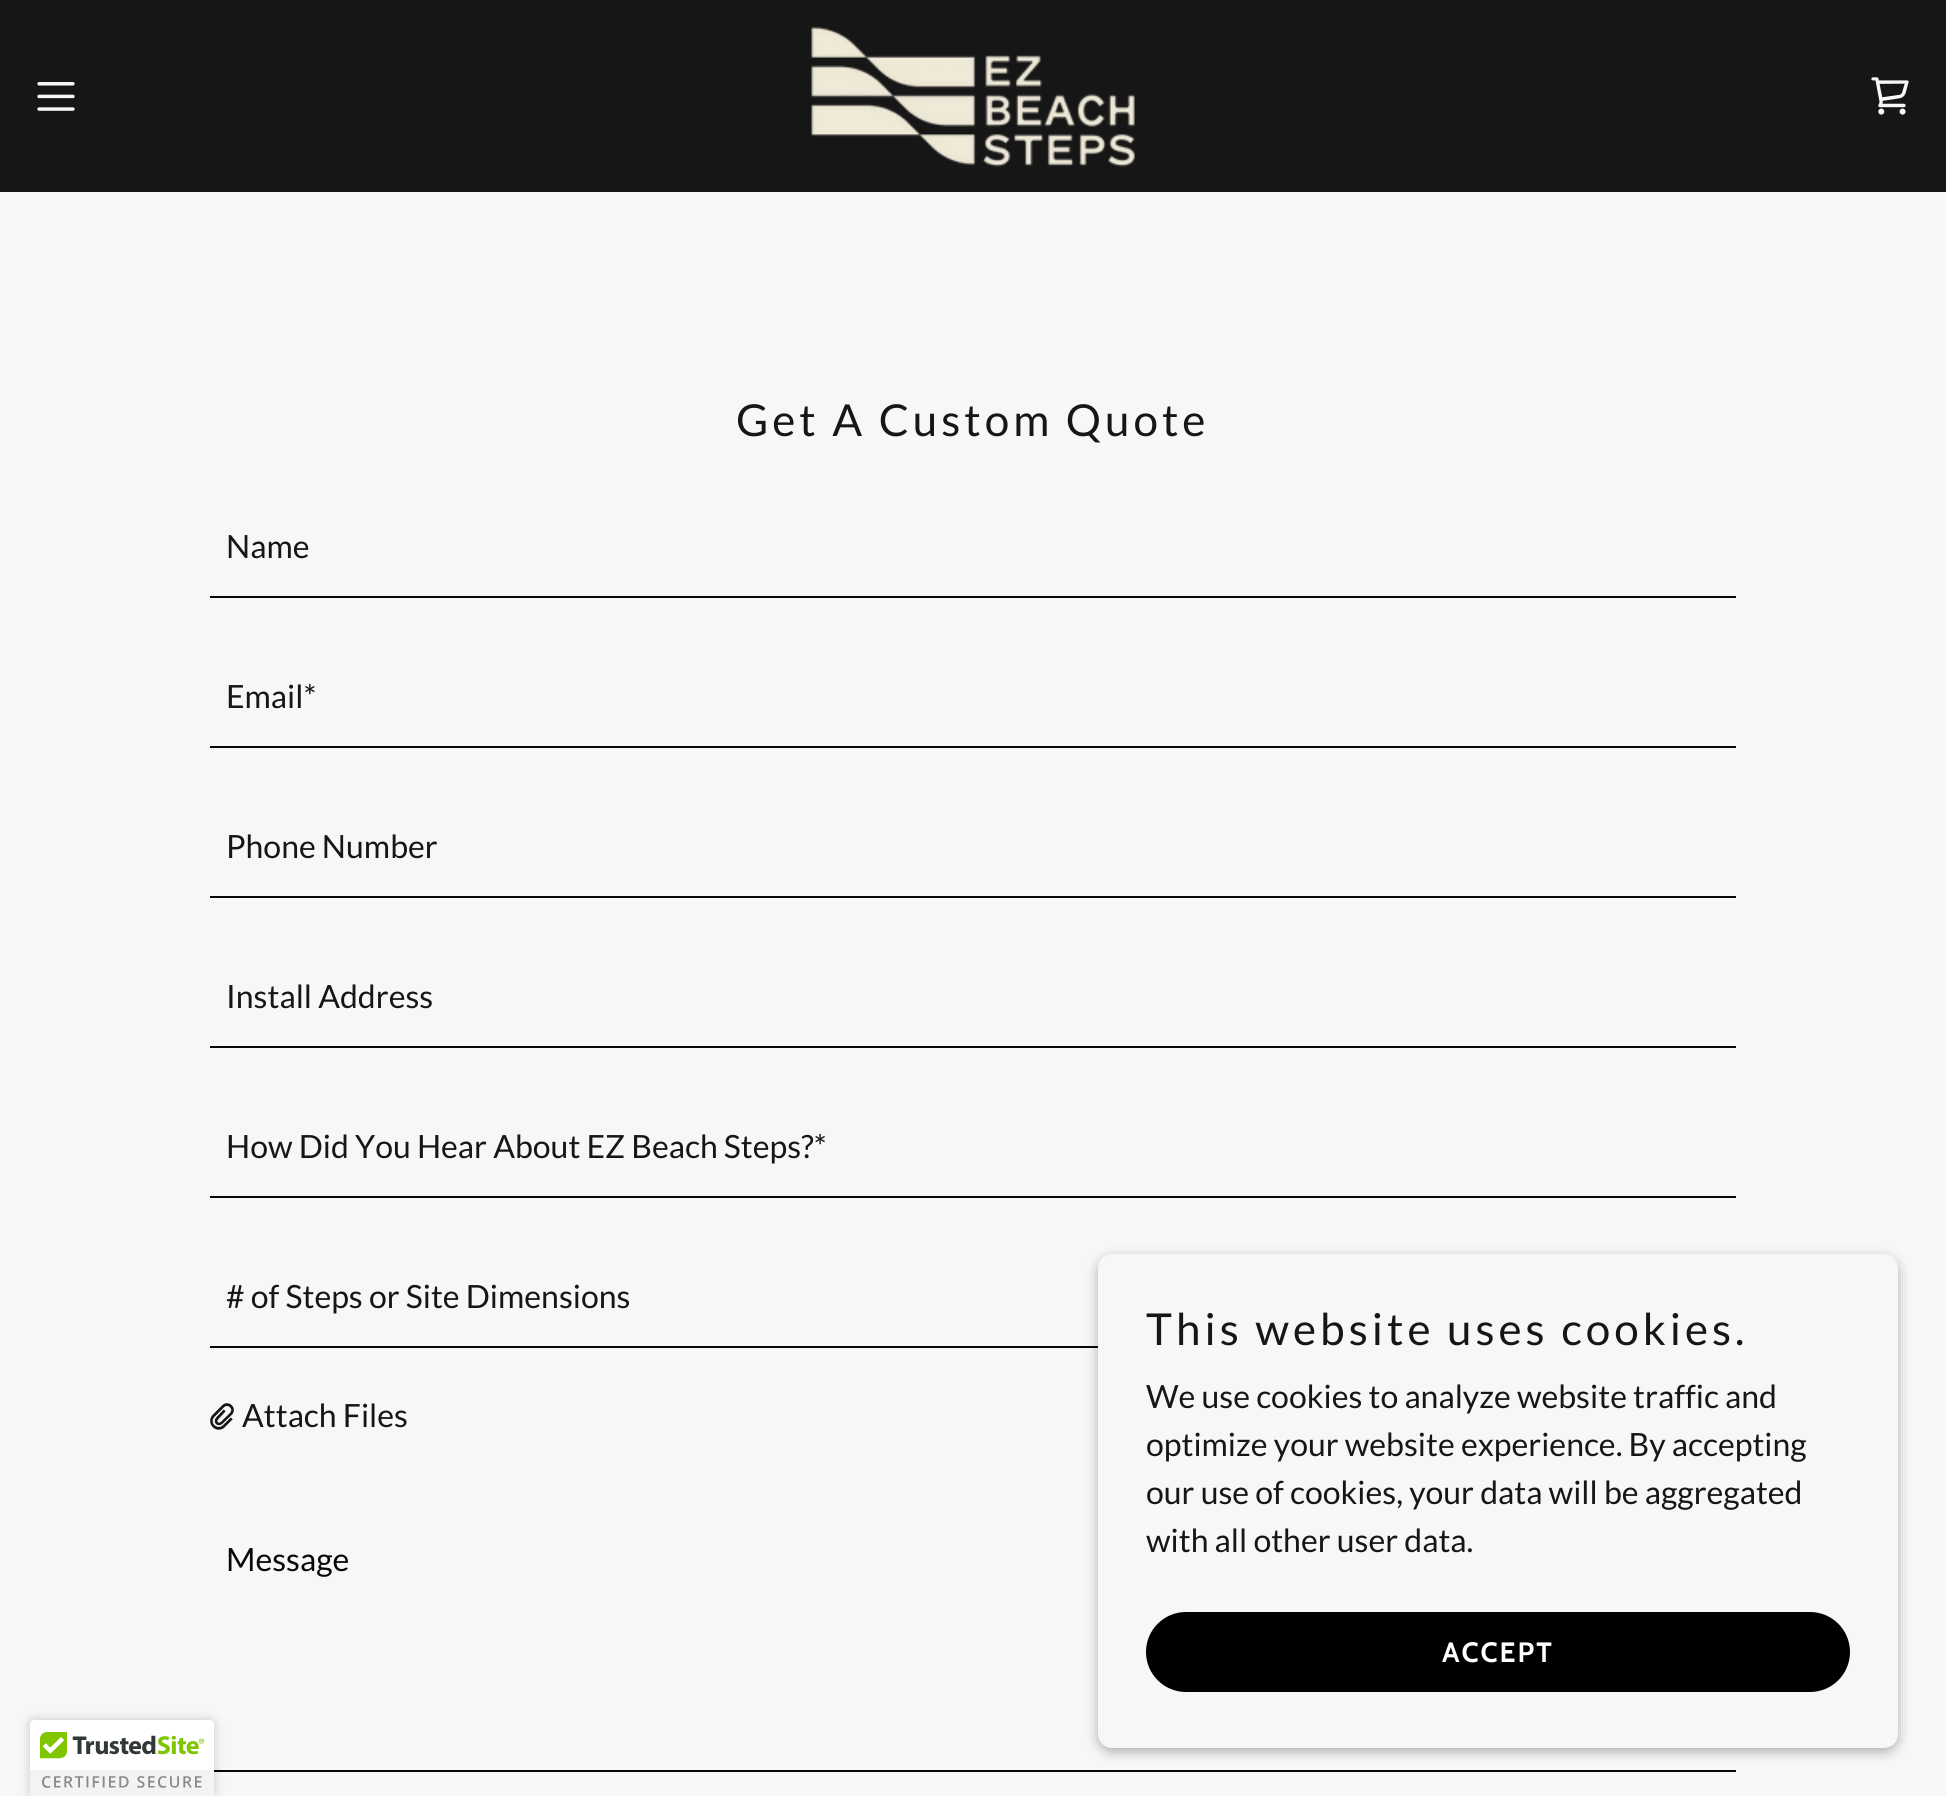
#include <cairo.h>
#include <math.h>
#include <stddef.h>


static void set_color(cairo_t *cr, unsigned color) {
    cairo_set_source_rgb(cr, (color >> 16) / 255.0, (color >> 8 & 255) / 255.0, (color & 255) / 255.0);
}

static void draw_text(cairo_t *cr, double x, double y, const char *s, const char *family, double size, int italic, int bold, unsigned color) {
    cairo_select_font_face(cr, family, italic ? CAIRO_FONT_SLANT_ITALIC : CAIRO_FONT_SLANT_NORMAL,
        bold ? CAIRO_FONT_WEIGHT_BOLD : CAIRO_FONT_WEIGHT_NORMAL);
    cairo_set_font_size(cr, size);
    set_color(cr, color);
    cairo_move_to(cr, x, y);
    cairo_show_text(cr, s);
}

static void draw_spaced(cairo_t *cr, double x, double y, const char *s, double letter, double word) {
    cairo_move_to(cr, x, y);
    while (*s) {
        char ch[5] = {0};
        int n = 0;
        do ch[n++] = *s++; while ((*s & 0xC0) == 0x80);
        cairo_show_text(cr, ch);
        cairo_rel_move_to(cr, letter + word * (*ch == ' '), 0);
    }
}

static void fill_rect(cairo_t *cr, double x, double y, double w, double h, unsigned color) {
    set_color(cr, color);
    cairo_rectangle(cr, x, y, w, h);
    cairo_fill(cr);
}

static void rounded_rect(cairo_t *cr, double x, double y, double w, double h, double r) {
    cairo_new_sub_path(cr);
    cairo_arc(cr, x + w - r, y + h - r, r, 0, M_PI / 2);
    cairo_arc(cr, x + r, y + h - r, r, M_PI / 2, M_PI);
    cairo_arc(cr, x + r, y + r, r, M_PI, 1.5 * M_PI);
    cairo_arc(cr, x + w - r, y + r, r, 1.5 * M_PI, 2 * M_PI);
    cairo_close_path(cr);
}

static void draw_shadow(cairo_t *cr, double x, double y, double w, double h, double r, double blur, double alpha) {
    cairo_push_group_with_content(cr, CAIRO_CONTENT_ALPHA);
    cairo_set_operator(cr, CAIRO_OPERATOR_SOURCE);
    for (int i = 15; i >= -15 && fmin(w, h) + blur * i / 3 > 0; i -= 2) {
        double e = blur * i / 6;
        cairo_set_source_rgba(cr, 0, 0, 0, alpha * erfc((i - 1) / 8.5) / 2);
        rounded_rect(cr, x - e, y - e, w + 2 * e, h + 2 * e, fmax(0, fmin(r + e + blur * .6, fmin(w, h) / 2 + e)));
        cairo_fill(cr);
    }
    cairo_pattern_t *soft = cairo_pop_group(cr);
    cairo_mask(cr, soft);
    cairo_pattern_destroy(soft);
}

static void draw_image(cairo_t *cr, const char *path, double x, double y, double w, double h) {
    cairo_surface_t *image = cairo_image_surface_create_from_png(path);
    cairo_save(cr);
    cairo_set_source_surface(cr, image, x, y);
    cairo_rectangle(cr, x, y, w, h);
    cairo_fill(cr);
    cairo_restore(cr);
    cairo_surface_destroy(image);
}

int main(void) {
    cairo_surface_t *surface = cairo_image_surface_create(CAIRO_FORMAT_RGB24, 1946, 1796);
    cairo_t *cr = cairo_create(surface);
    cairo_font_options_t *options = cairo_font_options_create();
    cairo_font_options_set_hint_metrics(options, CAIRO_HINT_METRICS_OFF);
    cairo_font_options_set_hint_style(options, CAIRO_HINT_STYLE_NONE);
    cairo_set_font_options(cr, options);
    cairo_set_miter_limit(cr, 4);
    set_color(cr, 0xF7F7F7);
    cairo_paint(cr);
    fill_rect(cr, 0, 0, 1946, 192, 0x161616);
    draw_image(cr, "assets/img1.png", 37, 82, 38, 29);
    draw_image(cr, "assets/img2.png", 811, 26, 324, 141);
    draw_image(cr, "assets/img3.png", 1871, 77, 38, 38);
    cairo_select_font_face(cr, "Lato", CAIRO_FONT_SLANT_NORMAL, CAIRO_FONT_WEIGHT_NORMAL);
    cairo_set_font_size(cr, 44);
    draw_spaced(cr, 736, 436, "Get A Custom Quote", 4, 0);
    draw_text(cr, 226, 558, "Name", "Lato", 32, 0, 0, 0x161616);
    fill_rect(cr, 210, 596, 1526, 2, 0x080808);
    draw_text(cr, 226, 708, "Email*", "Lato", 32, 0, 0, 0x161616);
    fill_rect(cr, 210, 746, 1526, 2, 0x080808);
    draw_text(cr, 226, 858, "Phone Number", "Lato", 32, 0, 0, 0x161616);
    fill_rect(cr, 210, 896, 1526, 2, 0x080808);
    draw_text(cr, 226, 1008, "Install Address", "Lato", 32, 0, 0, 0x161616);
    fill_rect(cr, 210, 1046, 1526, 2, 0x080808);
    draw_text(cr, 226, 1158, "How Did You Hear About EZ Beach Steps?*", "Lato", 32, 0, 0, 0x161616);
    fill_rect(cr, 210, 1196, 1526, 2, 0x080808);
    draw_text(cr, 226, 1308, "# of Steps or Site Dimensions", "Lato", 32, 0, 0, 0x161616);
    fill_rect(cr, 210, 1346, 888, 2, 0x080808);
    draw_image(cr, "assets/img4.png", 210, 1403, 24, 27);
    draw_text(cr, 242, 1427, "Attach Files", "Lato", 32, 0, 0, 0x161616);
    fill_rect(cr, 210, 1770, 1526, 2, 0x080808);
    draw_text(cr, 226, 1571, "Message", "Lato", 32, 0, 0, 0x080808);
    set_color(cr, 0x000000);
    draw_shadow(cr, 1098, 1258, 800, 494, 14, 6, 0.3);
    set_color(cr, 0xF7F7F7);
    rounded_rect(cr, 1098, 1254, 800, 494, 14);
    cairo_fill(cr);
    cairo_set_font_size(cr, 44);
    set_color(cr, 0x161616);
    draw_spaced(cr, 1146, 1345, "This website uses cookies.", 4, 0);
    draw_text(cr, 1146, 1408, "We use cookies to analyze website traffic and", "Lato", 32, 0, 0, 0x161616);
    draw_text(cr, 1146, 1456, "optimize your website experience. By accepting", "Lato", 32, 0, 0, 0x161616);
    draw_text(cr, 1146, 1504, "our use of cookies, your data will be aggregated", "Lato", 32, 0, 0, 0x161616);
    draw_text(cr, 1146, 1552, "with all other user data.", "Lato", 32, 0, 0, 0x161616);
    set_color(cr, 0x000000);
    rounded_rect(cr, 1146, 1612, 704, 80, 40);
    cairo_fill(cr);
    cairo_select_font_face(cr, "Cabin", CAIRO_FONT_SLANT_NORMAL, CAIRO_FONT_WEIGHT_BOLD);
    cairo_set_font_size(cr, 28);
    set_color(cr, 0xFFFFFF);
    draw_spaced(cr, 1442, 1662, "ACCEPT", 2, 0);
    set_color(cr, 0x000000);
    draw_shadow(cr, 30, 1720, 184, 76, 4, 5, 0.2);
    set_color(cr, 0xFFFFFF);
    cairo_new_path(cr);
    cairo_move_to(cr, 34, 1720);
    cairo_line_to(cr, 210, 1720);
    cairo_curve_to(cr, 212, 1720, 214, 1722, 214, 1724);
    cairo_line_to(cr, 214, 1796);
    cairo_line_to(cr, 30, 1796);
    cairo_line_to(cr, 30, 1724);
    cairo_curve_to(cr, 30, 1722, 32, 1720, 34, 1720);
    cairo_close_path(cr);
    cairo_fill(cr);
    draw_image(cr, "assets/img5.png", 30, 1732, 184, 64);
    cairo_surface_write_to_png(surface, "output.png");
    cairo_font_options_destroy(options);
    cairo_destroy(cr);
    cairo_surface_destroy(surface);
    return 0;
}
